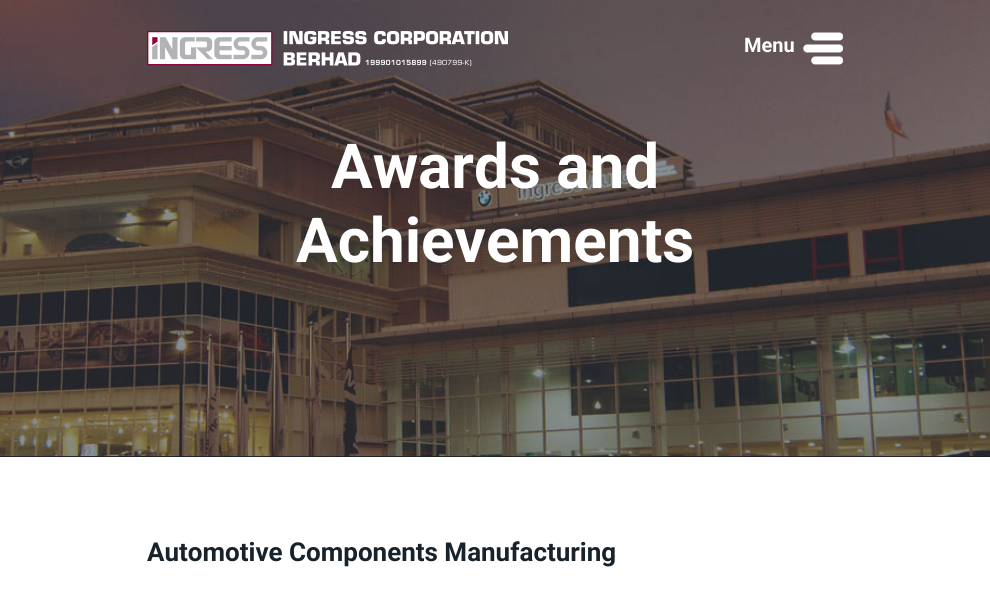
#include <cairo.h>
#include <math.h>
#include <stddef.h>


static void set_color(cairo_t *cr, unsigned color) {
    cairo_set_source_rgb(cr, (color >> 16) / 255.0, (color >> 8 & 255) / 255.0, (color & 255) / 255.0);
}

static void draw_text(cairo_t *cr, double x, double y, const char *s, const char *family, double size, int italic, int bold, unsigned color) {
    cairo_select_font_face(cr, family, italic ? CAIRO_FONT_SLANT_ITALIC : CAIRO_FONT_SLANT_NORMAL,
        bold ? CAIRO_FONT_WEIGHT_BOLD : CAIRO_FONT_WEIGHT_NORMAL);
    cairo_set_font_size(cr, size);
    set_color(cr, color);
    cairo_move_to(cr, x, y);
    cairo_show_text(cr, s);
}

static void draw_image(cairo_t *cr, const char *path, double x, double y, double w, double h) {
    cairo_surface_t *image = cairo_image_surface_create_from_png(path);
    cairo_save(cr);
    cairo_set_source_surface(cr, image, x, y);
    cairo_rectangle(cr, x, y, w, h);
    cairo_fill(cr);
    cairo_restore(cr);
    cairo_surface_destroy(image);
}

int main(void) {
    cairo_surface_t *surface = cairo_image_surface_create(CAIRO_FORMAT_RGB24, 990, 593);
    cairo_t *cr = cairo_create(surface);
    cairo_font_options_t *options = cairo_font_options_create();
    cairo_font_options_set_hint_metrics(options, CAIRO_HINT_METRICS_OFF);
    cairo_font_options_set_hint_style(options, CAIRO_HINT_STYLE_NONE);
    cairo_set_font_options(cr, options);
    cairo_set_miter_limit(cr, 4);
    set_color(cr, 0xFFFFFF);
    cairo_paint(cr);
    draw_image(cr, "assets/img3.png", 0, 0, 990, 457);
    draw_image(cr, "assets/img1.png", 147, 31, 361, 35);
    draw_text(cr, 744, 52, "Menu", "Roboto", 20, 0, 1, 0xFFFFFF);
    draw_image(cr, "assets/img2.png", 803, 32, 40, 33);
    draw_text(cr, 331, 188, "Awards and", "Roboto", 62, 0, 1, 0xFFFFFF);
    draw_text(cr, 296, 262, "Achievements", "Roboto", 62, 0, 1, 0xFFFFFF);
    draw_text(cr, 147, 561, "Automotive Components Manufacturing", "Roboto", 26, 0, 1, 0x17222B);
    cairo_surface_write_to_png(surface, "output.png");
    cairo_font_options_destroy(options);
    cairo_destroy(cr);
    cairo_surface_destroy(surface);
    return 0;
}
